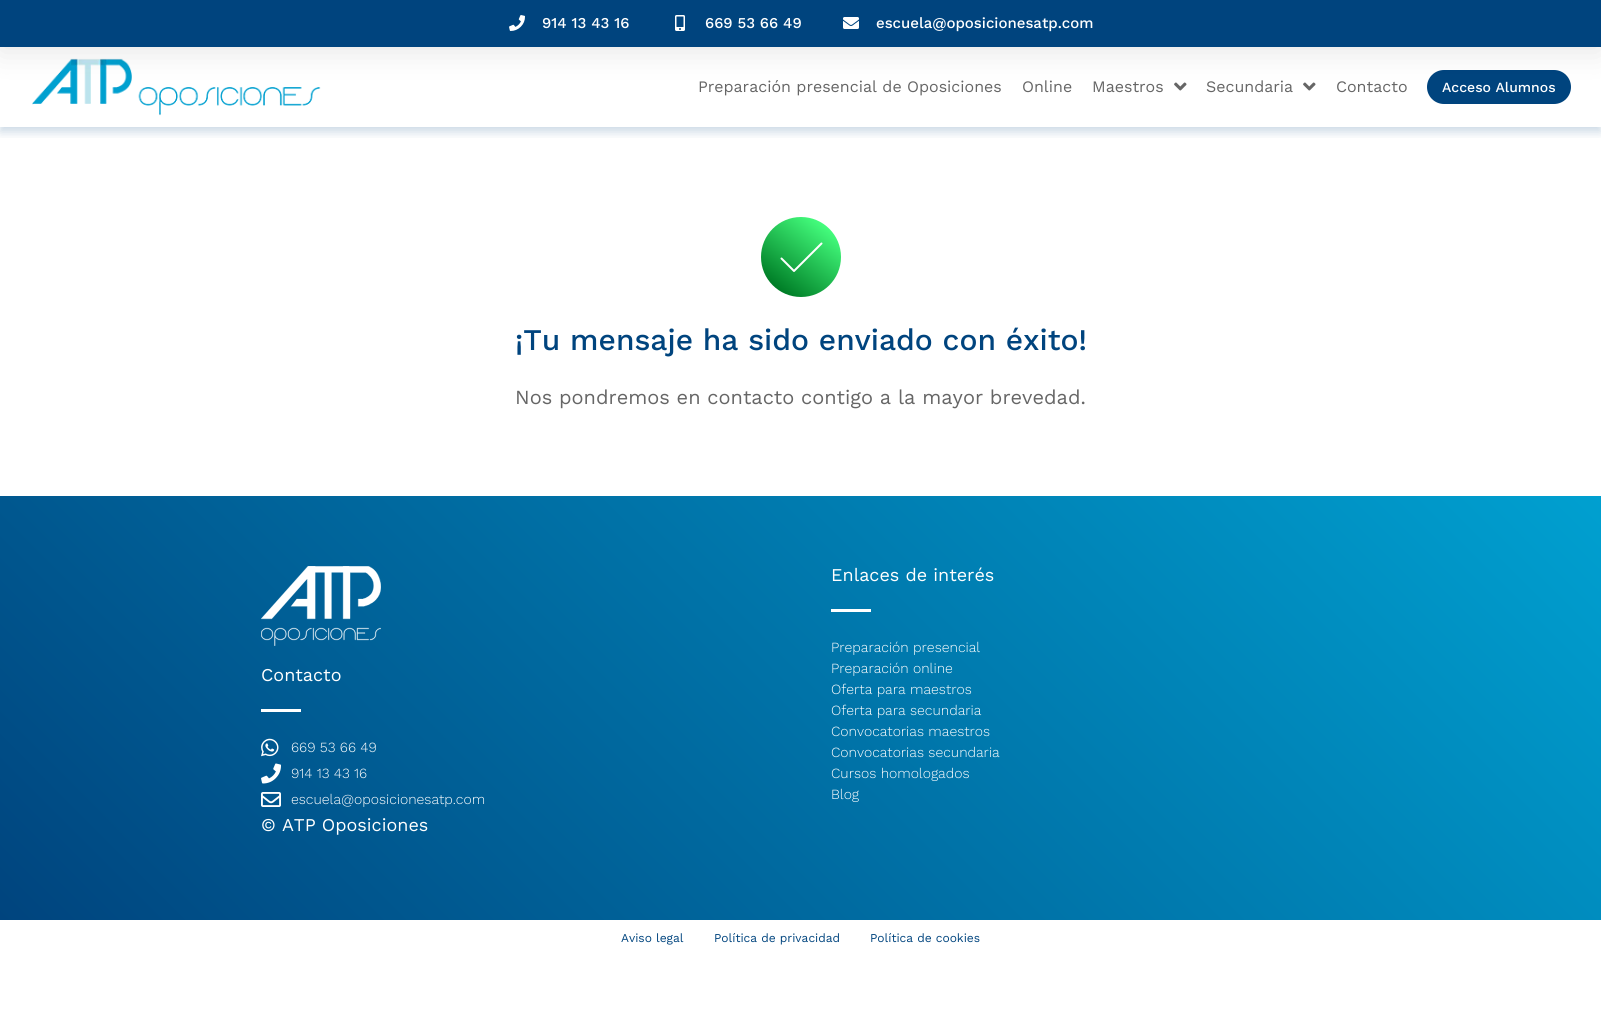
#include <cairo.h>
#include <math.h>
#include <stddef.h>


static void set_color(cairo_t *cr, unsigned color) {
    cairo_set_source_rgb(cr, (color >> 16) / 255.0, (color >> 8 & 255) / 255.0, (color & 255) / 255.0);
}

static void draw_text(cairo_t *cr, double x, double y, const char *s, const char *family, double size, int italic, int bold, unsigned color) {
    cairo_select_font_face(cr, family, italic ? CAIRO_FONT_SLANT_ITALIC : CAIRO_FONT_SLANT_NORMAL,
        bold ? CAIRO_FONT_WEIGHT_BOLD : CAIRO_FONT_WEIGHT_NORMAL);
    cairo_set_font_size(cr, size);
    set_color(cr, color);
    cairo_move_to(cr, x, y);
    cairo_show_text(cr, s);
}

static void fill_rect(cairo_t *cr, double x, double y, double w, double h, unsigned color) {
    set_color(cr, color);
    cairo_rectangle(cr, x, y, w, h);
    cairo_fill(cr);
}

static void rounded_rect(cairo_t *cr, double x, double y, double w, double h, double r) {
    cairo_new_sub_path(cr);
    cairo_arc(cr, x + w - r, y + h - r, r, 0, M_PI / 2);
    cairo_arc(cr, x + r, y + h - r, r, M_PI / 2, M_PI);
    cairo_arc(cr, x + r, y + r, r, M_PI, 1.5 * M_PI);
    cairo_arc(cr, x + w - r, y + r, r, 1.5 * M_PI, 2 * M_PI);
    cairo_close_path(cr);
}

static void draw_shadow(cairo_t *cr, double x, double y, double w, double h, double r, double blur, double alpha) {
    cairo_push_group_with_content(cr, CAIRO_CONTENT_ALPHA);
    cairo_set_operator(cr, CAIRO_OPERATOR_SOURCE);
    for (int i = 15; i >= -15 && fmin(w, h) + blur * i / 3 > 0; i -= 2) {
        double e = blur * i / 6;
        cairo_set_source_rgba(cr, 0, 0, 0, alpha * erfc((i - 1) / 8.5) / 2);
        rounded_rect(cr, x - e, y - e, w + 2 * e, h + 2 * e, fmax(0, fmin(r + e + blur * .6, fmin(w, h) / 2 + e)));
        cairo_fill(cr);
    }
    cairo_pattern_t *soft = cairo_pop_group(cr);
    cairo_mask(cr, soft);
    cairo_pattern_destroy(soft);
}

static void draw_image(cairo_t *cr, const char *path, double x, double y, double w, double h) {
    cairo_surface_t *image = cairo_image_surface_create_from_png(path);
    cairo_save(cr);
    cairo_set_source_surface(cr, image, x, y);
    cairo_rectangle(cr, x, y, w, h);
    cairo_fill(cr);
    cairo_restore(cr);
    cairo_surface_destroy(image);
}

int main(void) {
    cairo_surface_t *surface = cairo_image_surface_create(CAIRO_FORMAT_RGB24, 1601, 1031);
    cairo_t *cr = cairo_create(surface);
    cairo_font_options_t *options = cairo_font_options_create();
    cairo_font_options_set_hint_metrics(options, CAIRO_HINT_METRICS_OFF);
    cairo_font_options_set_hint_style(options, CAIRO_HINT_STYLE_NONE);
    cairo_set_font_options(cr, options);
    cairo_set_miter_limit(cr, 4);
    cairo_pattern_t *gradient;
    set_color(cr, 0xFFFFFF);
    cairo_paint(cr);
    cairo_save(cr);
    cairo_rectangle(cr, 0, 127, 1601, 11);
    cairo_clip(cr);
    set_color(cr, 0x00447E);
    draw_shadow(cr, 0, 52, 1601, 80, 0, 5, 0.2);
    cairo_restore(cr);
    draw_image(cr, "assets/img4.png", 32, 58, 289, 58);
    draw_image(cr, "assets/img5.png", 1174, 82, 13, 9);
    draw_image(cr, "assets/img5.png", 1303, 82, 13, 9);
    set_color(cr, 0x00447E);
    rounded_rect(cr, 1427, 70, 144, 34, 17);
    cairo_fill(cr);
    set_color(cr, 0x000000);
    draw_shadow(cr, 0, 5, 1601, 47, 0, 15, 0.1);
    fill_rect(cr, 0, 0, 1601, 47, 0x00447E);
    draw_image(cr, "assets/img1.png", 509, 15, 16, 16);
    draw_text(cr, 542, 28, "914 13 43 16", "Work Sans Medium", 15, 0, 0, 0xFFFFFF);
    draw_image(cr, "assets/img2.png", 675, 15, 10, 16);
    draw_text(cr, 705, 28, "669 53 66 49", "Work Sans Medium", 15, 0, 0, 0xFFFFFF);
    draw_image(cr, "assets/img3.png", 843, 17, 16, 12);
    draw_text(cr, 876, 28, "escuela@oposicionesatp.com", "Work Sans Medium", 15, 0, 0, 0xFFFFFF);
    draw_text(cr, 698, 92, "Preparación presencial de Oposiciones", "Work Sans", 16, 0, 0, 0x666666);
    draw_text(cr, 1022, 92, "Online", "Work Sans", 16, 0, 0, 0x666666);
    draw_text(cr, 1092, 92, "Maestros", "Work Sans", 16, 0, 0, 0x666666);
    draw_text(cr, 1206, 92, "Secundaria", "Work Sans", 16, 0, 0, 0x666666);
    draw_text(cr, 1336, 92, "Contacto", "Work Sans", 16, 0, 0, 0x666666);
    draw_text(cr, 1442, 92, "Acceso Alumnos", "Work Sans Medium", 14, 0, 0, 0xFFFFFF);
    gradient = cairo_pattern_create_linear(829, 227, 781, 290);
    cairo_pattern_add_color_stop_rgba(gradient, 0, 0.271, 1, 0.494, 1);
    cairo_pattern_add_color_stop_rgba(gradient, 1, 0, 0.494, 0.153, 1);
    cairo_set_source(cr, gradient);
    cairo_pattern_destroy(gradient);
    cairo_new_path(cr);
    cairo_arc(cr, 801, 257, 40, 0, 2 * M_PI);
    cairo_fill(cr);
    cairo_new_path(cr);
    cairo_move_to(cr, 821.5, 243.5);
    cairo_line_to(cr, 794, 271);
    cairo_line_to(cr, 781.5, 258.5);
    set_color(cr, 0xFFFFFF);
    cairo_set_line_cap(cr, CAIRO_LINE_CAP_ROUND);
    cairo_set_line_join(cr, CAIRO_LINE_JOIN_ROUND);
    cairo_stroke(cr);
    draw_text(cr, 515, 350, "¡Tu mensaje ha sido enviado con éxito!", "Work Sans Medium", 30, 0, 0, 0x00447E);
    draw_text(cr, 515, 404, "Nos pondremos en contacto contigo a la mayor brevedad.", "Work Sans", 20, 0, 0, 0x666666);
    gradient = cairo_pattern_create_linear(294, 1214, 1307, 202);
    cairo_pattern_add_color_stop_rgba(gradient, 0, 0, 0.267, 0.494, 1);
    cairo_pattern_add_color_stop_rgba(gradient, 1, 0, 0.627, 0.816, 1);
    cairo_set_source(cr, gradient);
    cairo_pattern_destroy(gradient);
    cairo_rectangle(cr, 0, 496, 1601, 424);
    cairo_fill(cr);
    draw_image(cr, "assets/img6.png", 261, 566, 120, 80);
    draw_text(cr, 261, 681, "Contacto", "Work Sans", 18, 0, 0, 0xFFFFFF);
    fill_rect(cr, 261, 709, 40, 3, 0xFFFFFF);
    draw_image(cr, "assets/img7.png", 261, 738, 18, 19);
    draw_text(cr, 291, 752, "669 53 66 49", "Work Sans Light", 14, 0, 0, 0xFFFFFF);
    draw_image(cr, "assets/img8.png", 261, 763, 20, 21);
    draw_text(cr, 291, 778, "914 13 43 16", "Work Sans Light", 14, 0, 0, 0xFFFFFF);
    draw_image(cr, "assets/img9.png", 261, 792, 20, 15);
    draw_text(cr, 291, 804, "escuela@oposicionesatp.com", "Work Sans Light", 14, 0, 0, 0xFFFFFF);
    draw_text(cr, 261, 831, "© ATP Oposiciones", "Work Sans", 18, 0, 0, 0xFFFFFF);
    draw_text(cr, 831, 581, "Enlaces de interés", "Work Sans", 18, 0, 0, 0xFFFFFF);
    fill_rect(cr, 831, 609, 40, 3, 0xFFFFFF);
    draw_text(cr, 831, 652, "Preparación presencial", "Work Sans Light", 14, 0, 0, 0xFFFFFF);
    draw_text(cr, 831, 673, "Preparación online", "Work Sans Light", 14, 0, 0, 0xFFFFFF);
    draw_text(cr, 831, 694, "Oferta para maestros", "Work Sans Light", 14, 0, 0, 0xFFFFFF);
    draw_text(cr, 831, 715, "Oferta para secundaria", "Work Sans Light", 14, 0, 0, 0xFFFFFF);
    draw_text(cr, 831, 736, "Convocatorias maestros", "Work Sans Light", 14, 0, 0, 0xFFFFFF);
    draw_text(cr, 831, 757, "Convocatorias secundaria", "Work Sans Light", 14, 0, 0, 0xFFFFFF);
    draw_text(cr, 831, 778, "Cursos homologados", "Work Sans Light", 14, 0, 0, 0xFFFFFF);
    draw_text(cr, 831, 799, "Blog", "Work Sans Light", 14, 0, 0, 0xFFFFFF);
    draw_text(cr, 621, 942, "Aviso legal", "Work Sans", 12, 0, 0, 0x00447E);
    draw_text(cr, 714, 942, "Política de privacidad", "Work Sans", 12, 0, 0, 0x00447E);
    draw_text(cr, 870, 942, "Política de cookies", "Work Sans", 12, 0, 0, 0x00447E);
    cairo_surface_write_to_png(surface, "output.png");
    cairo_font_options_destroy(options);
    cairo_destroy(cr);
    cairo_surface_destroy(surface);
    return 0;
}
